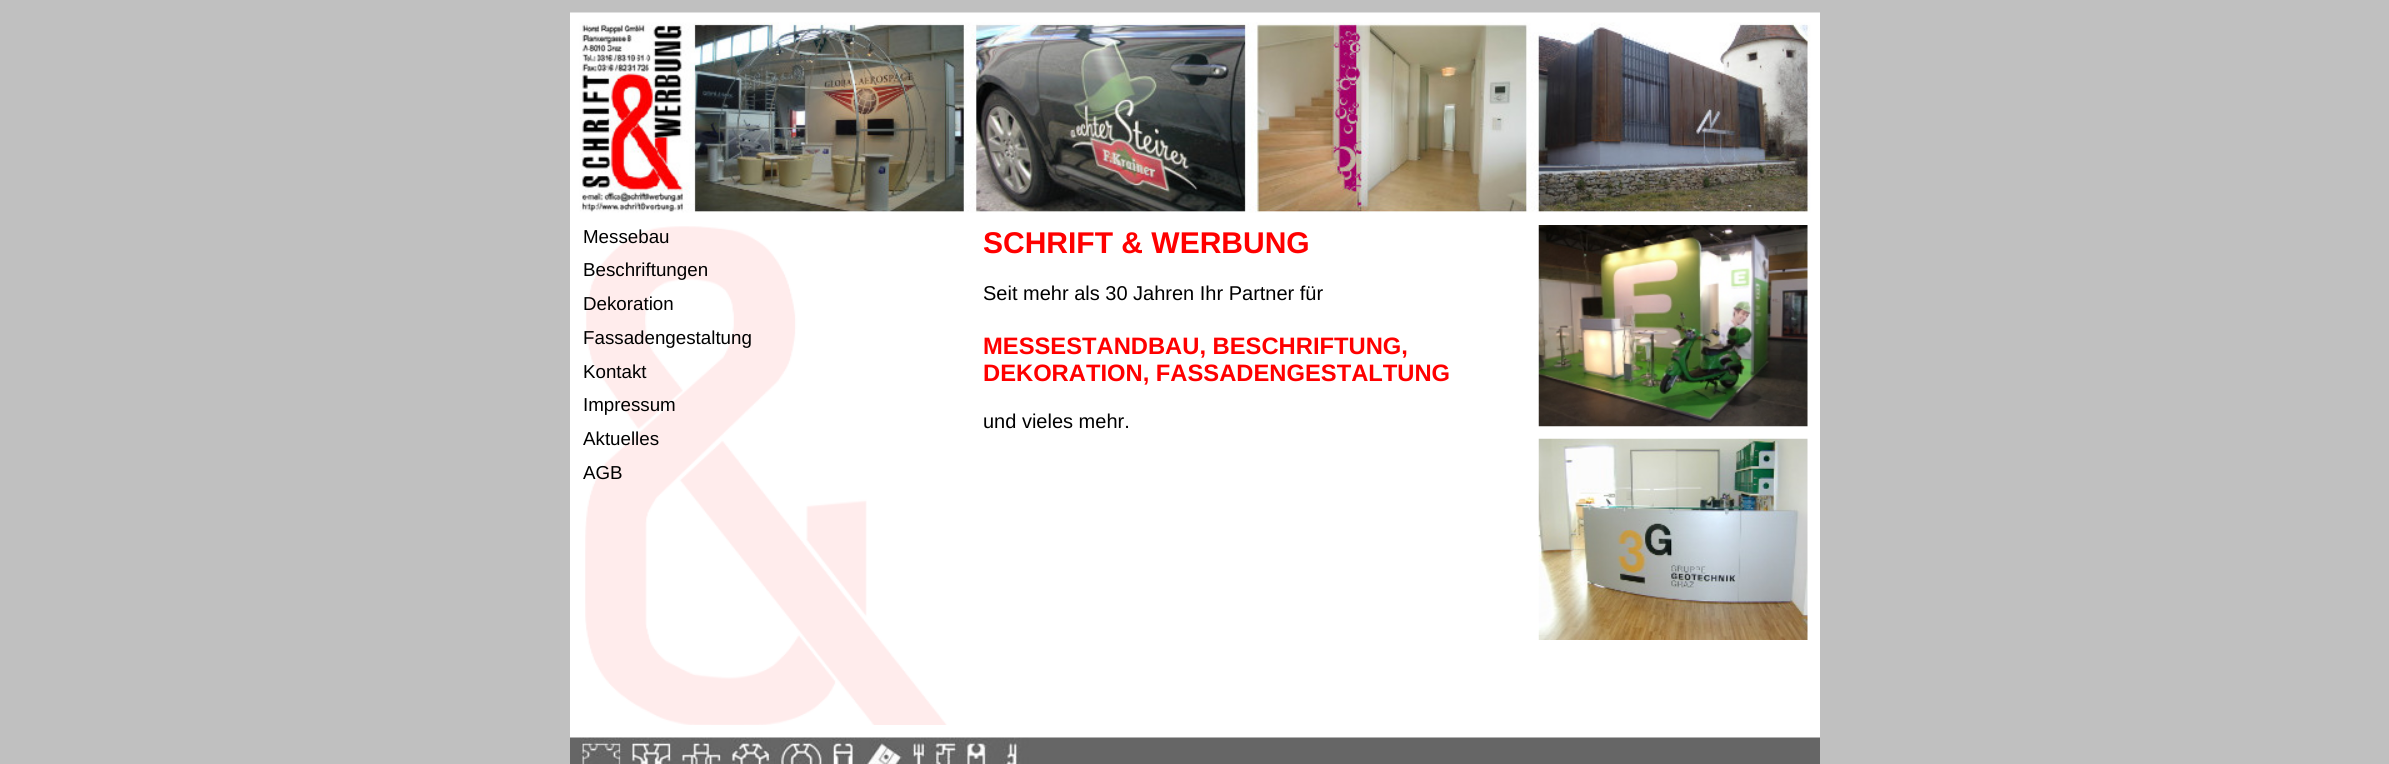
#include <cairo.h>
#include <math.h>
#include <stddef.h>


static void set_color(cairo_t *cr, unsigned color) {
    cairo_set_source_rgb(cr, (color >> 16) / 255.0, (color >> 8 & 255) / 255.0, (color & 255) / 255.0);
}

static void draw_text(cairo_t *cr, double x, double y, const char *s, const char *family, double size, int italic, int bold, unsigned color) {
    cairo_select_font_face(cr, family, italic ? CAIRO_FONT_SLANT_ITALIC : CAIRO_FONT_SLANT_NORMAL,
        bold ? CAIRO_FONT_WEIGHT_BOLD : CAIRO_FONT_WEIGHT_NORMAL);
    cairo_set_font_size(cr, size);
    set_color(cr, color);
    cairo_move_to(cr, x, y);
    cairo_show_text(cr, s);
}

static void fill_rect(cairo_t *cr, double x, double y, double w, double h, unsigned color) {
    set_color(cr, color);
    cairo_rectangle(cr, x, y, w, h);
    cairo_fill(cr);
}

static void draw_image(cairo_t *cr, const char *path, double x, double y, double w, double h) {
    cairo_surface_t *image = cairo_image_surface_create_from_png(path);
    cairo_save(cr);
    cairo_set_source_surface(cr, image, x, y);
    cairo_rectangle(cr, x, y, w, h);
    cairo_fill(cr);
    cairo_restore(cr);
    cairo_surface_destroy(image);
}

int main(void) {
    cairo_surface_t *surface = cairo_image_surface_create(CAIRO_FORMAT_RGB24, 2389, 764);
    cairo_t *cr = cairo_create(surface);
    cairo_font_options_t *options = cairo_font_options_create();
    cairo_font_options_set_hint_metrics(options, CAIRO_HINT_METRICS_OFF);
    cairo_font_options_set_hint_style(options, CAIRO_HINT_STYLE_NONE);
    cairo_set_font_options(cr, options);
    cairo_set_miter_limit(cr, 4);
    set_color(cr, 0xC0C0C0);
    cairo_paint(cr);
    fill_rect(cr, 570, 213, 1250, 525, 0xFFFFFF);
    draw_image(cr, "assets/img1.png", 570, 12, 1250, 201);
    draw_image(cr, "assets/img2.png", 585, 226, 362, 499);
    draw_text(cr, 583, 243, "Messebau", "Liberation Sans", 18.75, 0, 0, 0x000000);
    draw_text(cr, 583, 276, "Beschriftungen", "Liberation Sans", 18.75, 0, 0, 0x000000);
    draw_text(cr, 583, 310, "Dekoration", "Liberation Sans", 18.75, 0, 0, 0x000000);
    draw_text(cr, 583, 344, "Fassadengestaltung", "Liberation Sans", 18.75, 0, 0, 0x000000);
    draw_text(cr, 583, 378, "Kontakt", "Liberation Sans", 18.75, 0, 0, 0x000000);
    draw_text(cr, 583, 411, "Impressum", "Liberation Sans", 18.75, 0, 0, 0x000000);
    draw_text(cr, 583, 445, "Aktuelles", "Liberation Sans", 18.75, 0, 0, 0x000000);
    draw_text(cr, 583, 479, "AGB", "Liberation Sans", 18.75, 0, 0, 0x000000);
    draw_text(cr, 983, 253, "SCHRIFT & WERBUNG", "Liberation Sans", 30, 0, 1, 0xFF0000);
    draw_text(cr, 983, 300, "Seit mehr als 30 Jahren Ihr Partner für", "Liberation Sans", 20, 0, 0, 0x000000);
    draw_text(cr, 983, 354, "MESSESTANDBAU, BESCHRIFTUNG,", "Liberation Sans", 23.75, 0, 1, 0xFF0000);
    draw_text(cr, 983, 381, "DEKORATION, FASSADENGESTALTUNG", "Liberation Sans", 23.75, 0, 1, 0xFF0000);
    draw_text(cr, 983, 428, "und vieles mehr.", "Liberation Sans", 20, 0, 0, 0x000000);
    draw_image(cr, "assets/img3.png", 1538, 225, 270, 202);
    draw_image(cr, "assets/img4.png", 1538, 438, 270, 202);
    draw_image(cr, "assets/img5.png", 570, 737, 1250, 27);
    cairo_surface_write_to_png(surface, "output.png");
    cairo_font_options_destroy(options);
    cairo_destroy(cr);
    cairo_surface_destroy(surface);
    return 0;
}
